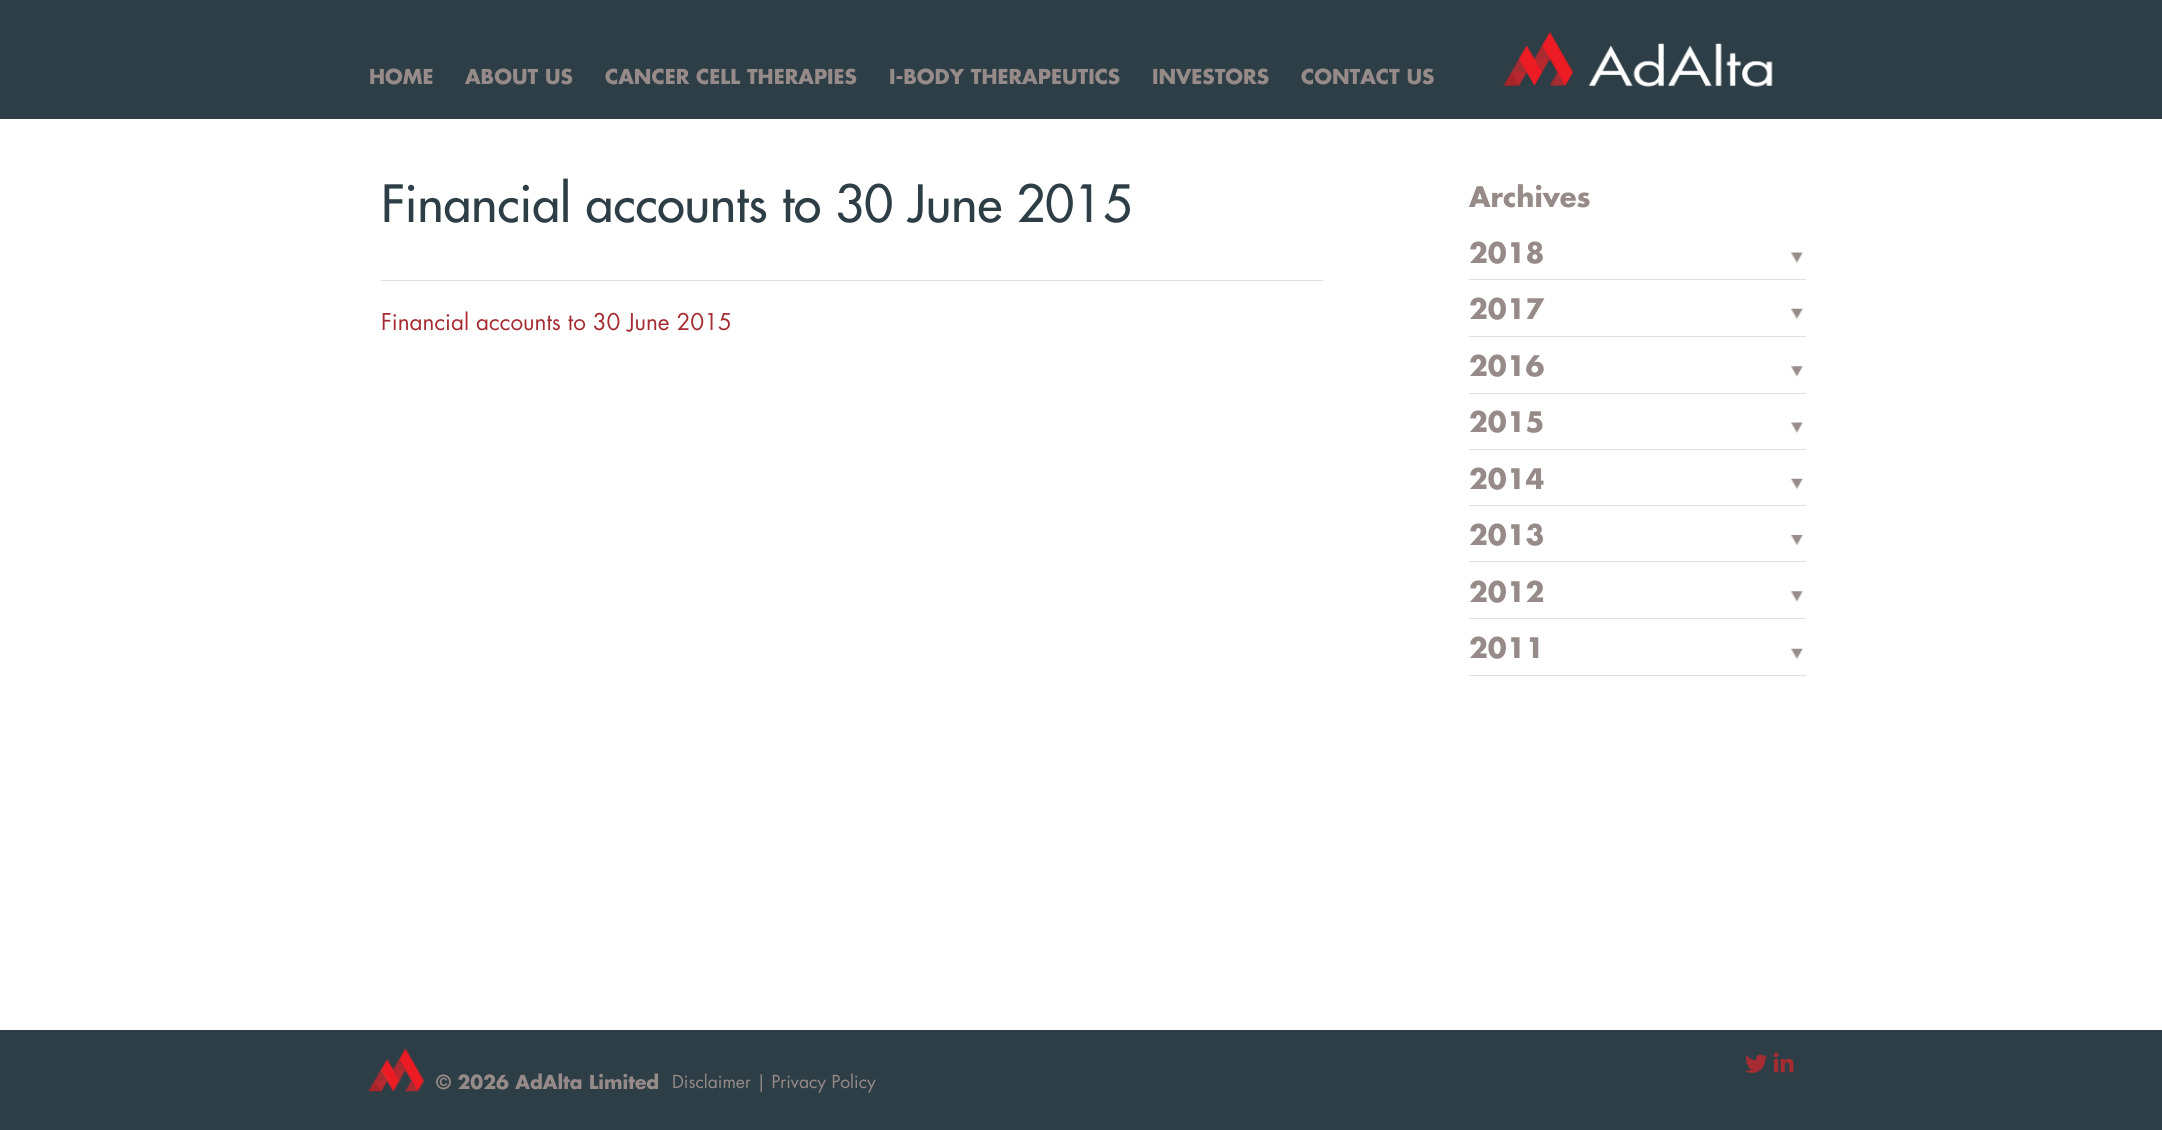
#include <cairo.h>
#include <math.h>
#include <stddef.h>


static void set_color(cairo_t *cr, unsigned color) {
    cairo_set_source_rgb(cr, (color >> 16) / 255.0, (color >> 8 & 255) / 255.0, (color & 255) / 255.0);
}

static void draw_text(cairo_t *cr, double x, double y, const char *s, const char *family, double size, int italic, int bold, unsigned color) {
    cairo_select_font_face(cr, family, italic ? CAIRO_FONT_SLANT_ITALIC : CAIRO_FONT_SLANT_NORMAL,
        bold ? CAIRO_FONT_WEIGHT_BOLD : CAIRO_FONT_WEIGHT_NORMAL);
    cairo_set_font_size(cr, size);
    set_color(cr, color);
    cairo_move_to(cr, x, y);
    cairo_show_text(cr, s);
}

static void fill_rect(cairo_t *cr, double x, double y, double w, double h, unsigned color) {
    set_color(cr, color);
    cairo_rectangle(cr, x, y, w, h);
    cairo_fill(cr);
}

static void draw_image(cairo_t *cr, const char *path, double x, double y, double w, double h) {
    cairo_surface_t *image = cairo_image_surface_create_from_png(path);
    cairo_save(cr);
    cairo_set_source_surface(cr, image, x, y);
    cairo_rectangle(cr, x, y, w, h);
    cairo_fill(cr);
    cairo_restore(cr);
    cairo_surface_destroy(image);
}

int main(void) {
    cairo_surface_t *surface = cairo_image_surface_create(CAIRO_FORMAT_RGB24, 2162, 1130);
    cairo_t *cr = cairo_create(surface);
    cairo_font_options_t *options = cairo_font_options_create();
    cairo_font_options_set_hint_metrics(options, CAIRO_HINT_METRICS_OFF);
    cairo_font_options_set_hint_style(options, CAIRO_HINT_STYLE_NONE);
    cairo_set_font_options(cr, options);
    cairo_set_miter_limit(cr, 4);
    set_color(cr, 0xFFFFFF);
    cairo_paint(cr);
    fill_rect(cr, 0, 0, 2162, 119, 0x2E3E46);
    draw_text(cr, 369, 84, "HOME", "Futura", 20, 0, 1, 0x968B88);
    draw_text(cr, 465, 84, "ABOUT US", "Futura", 20, 0, 1, 0x968B88);
    draw_text(cr, 605, 84, "CANCER CELL THERAPIES", "Futura", 20, 0, 1, 0x968B88);
    draw_text(cr, 889, 84, "I-BODY THERAPEUTICS", "Futura", 20, 0, 1, 0x968B88);
    draw_text(cr, 1152, 84, "INVESTORS", "Futura", 20, 0, 1, 0x968B88);
    draw_text(cr, 1301, 84, "CONTACT US", "Futura", 20, 0, 1, 0x968B88);
    draw_image(cr, "assets/img1.png", 1503, 32, 270, 55);
    draw_text(cr, 381, 222, "Financial accounts to 30 June 2015", "Futura Medium", 50, 0, 0, 0x2E3E46);
    fill_rect(cr, 381, 280, 942, 1, 0xE4DFDE);
    draw_text(cr, 381, 330, "Financial accounts to 30 June 2015", "Futura", 22.5, 0, 0, 0xA52C32);
    draw_text(cr, 1469, 207, "Archives", "Futura", 27.5, 0, 1, 0x968B88);
    draw_image(cr, "assets/img2.png", 1791, 252, 12, 11);
    fill_rect(cr, 1469, 279, 337, 1, 0xE4DFDE);
    draw_text(cr, 1469, 263, "2018", "Futura", 27.5, 0, 1, 0x968B88);
    draw_image(cr, "assets/img3.png", 1791, 308, 12, 11);
    fill_rect(cr, 1469, 336, 337, 1, 0xE4DFDE);
    draw_text(cr, 1469, 319, "2017", "Futura", 27.5, 0, 1, 0x968B88);
    draw_image(cr, "assets/img4.png", 1791, 366, 12, 11);
    fill_rect(cr, 1469, 393, 337, 1, 0xE4DFDE);
    draw_text(cr, 1469, 376, "2016", "Futura", 27.5, 0, 1, 0x968B88);
    draw_image(cr, "assets/img2.png", 1791, 422, 12, 11);
    fill_rect(cr, 1469, 449, 337, 1, 0xE4DFDE);
    draw_text(cr, 1469, 432, "2015", "Futura", 27.5, 0, 1, 0x968B88);
    draw_image(cr, "assets/img3.png", 1791, 478, 12, 11);
    fill_rect(cr, 1469, 505, 337, 1, 0xE4DFDE);
    draw_text(cr, 1469, 489, "2014", "Futura", 27.5, 0, 1, 0x968B88);
    draw_image(cr, "assets/img5.png", 1791, 535, 12, 10);
    fill_rect(cr, 1469, 561, 337, 1, 0xE4DFDE);
    draw_text(cr, 1469, 545, "2013", "Futura", 27.5, 0, 1, 0x968B88);
    draw_image(cr, "assets/img4.png", 1791, 591, 12, 11);
    fill_rect(cr, 1469, 618, 337, 1, 0xE4DFDE);
    draw_text(cr, 1469, 602, "2012", "Futura", 27.5, 0, 1, 0x968B88);
    draw_image(cr, "assets/img3.png", 1791, 648, 12, 11);
    fill_rect(cr, 1469, 675, 337, 1, 0xE4DFDE);
    draw_text(cr, 1469, 658, "2011", "Futura", 27.5, 0, 1, 0x968B88);
    fill_rect(cr, 0, 1030, 2162, 100, 0x2E3E46);
    draw_image(cr, "assets/img6.png", 1745, 1054, 23, 19);
    draw_image(cr, "assets/img7.png", 1773, 1052, 21, 21);
    draw_image(cr, "assets/img8.png", 368, 1048, 56, 44);
    draw_text(cr, 436, 1089, "© 2026 AdAlta Limited", "Futura", 18.75, 0, 1, 0x968B88);
    draw_text(cr, 672, 1088, "Disclaimer | Privacy Policy", "Futura", 17.5, 0, 0, 0x968B88);
    cairo_surface_write_to_png(surface, "output.png");
    cairo_font_options_destroy(options);
    cairo_destroy(cr);
    cairo_surface_destroy(surface);
    return 0;
}
